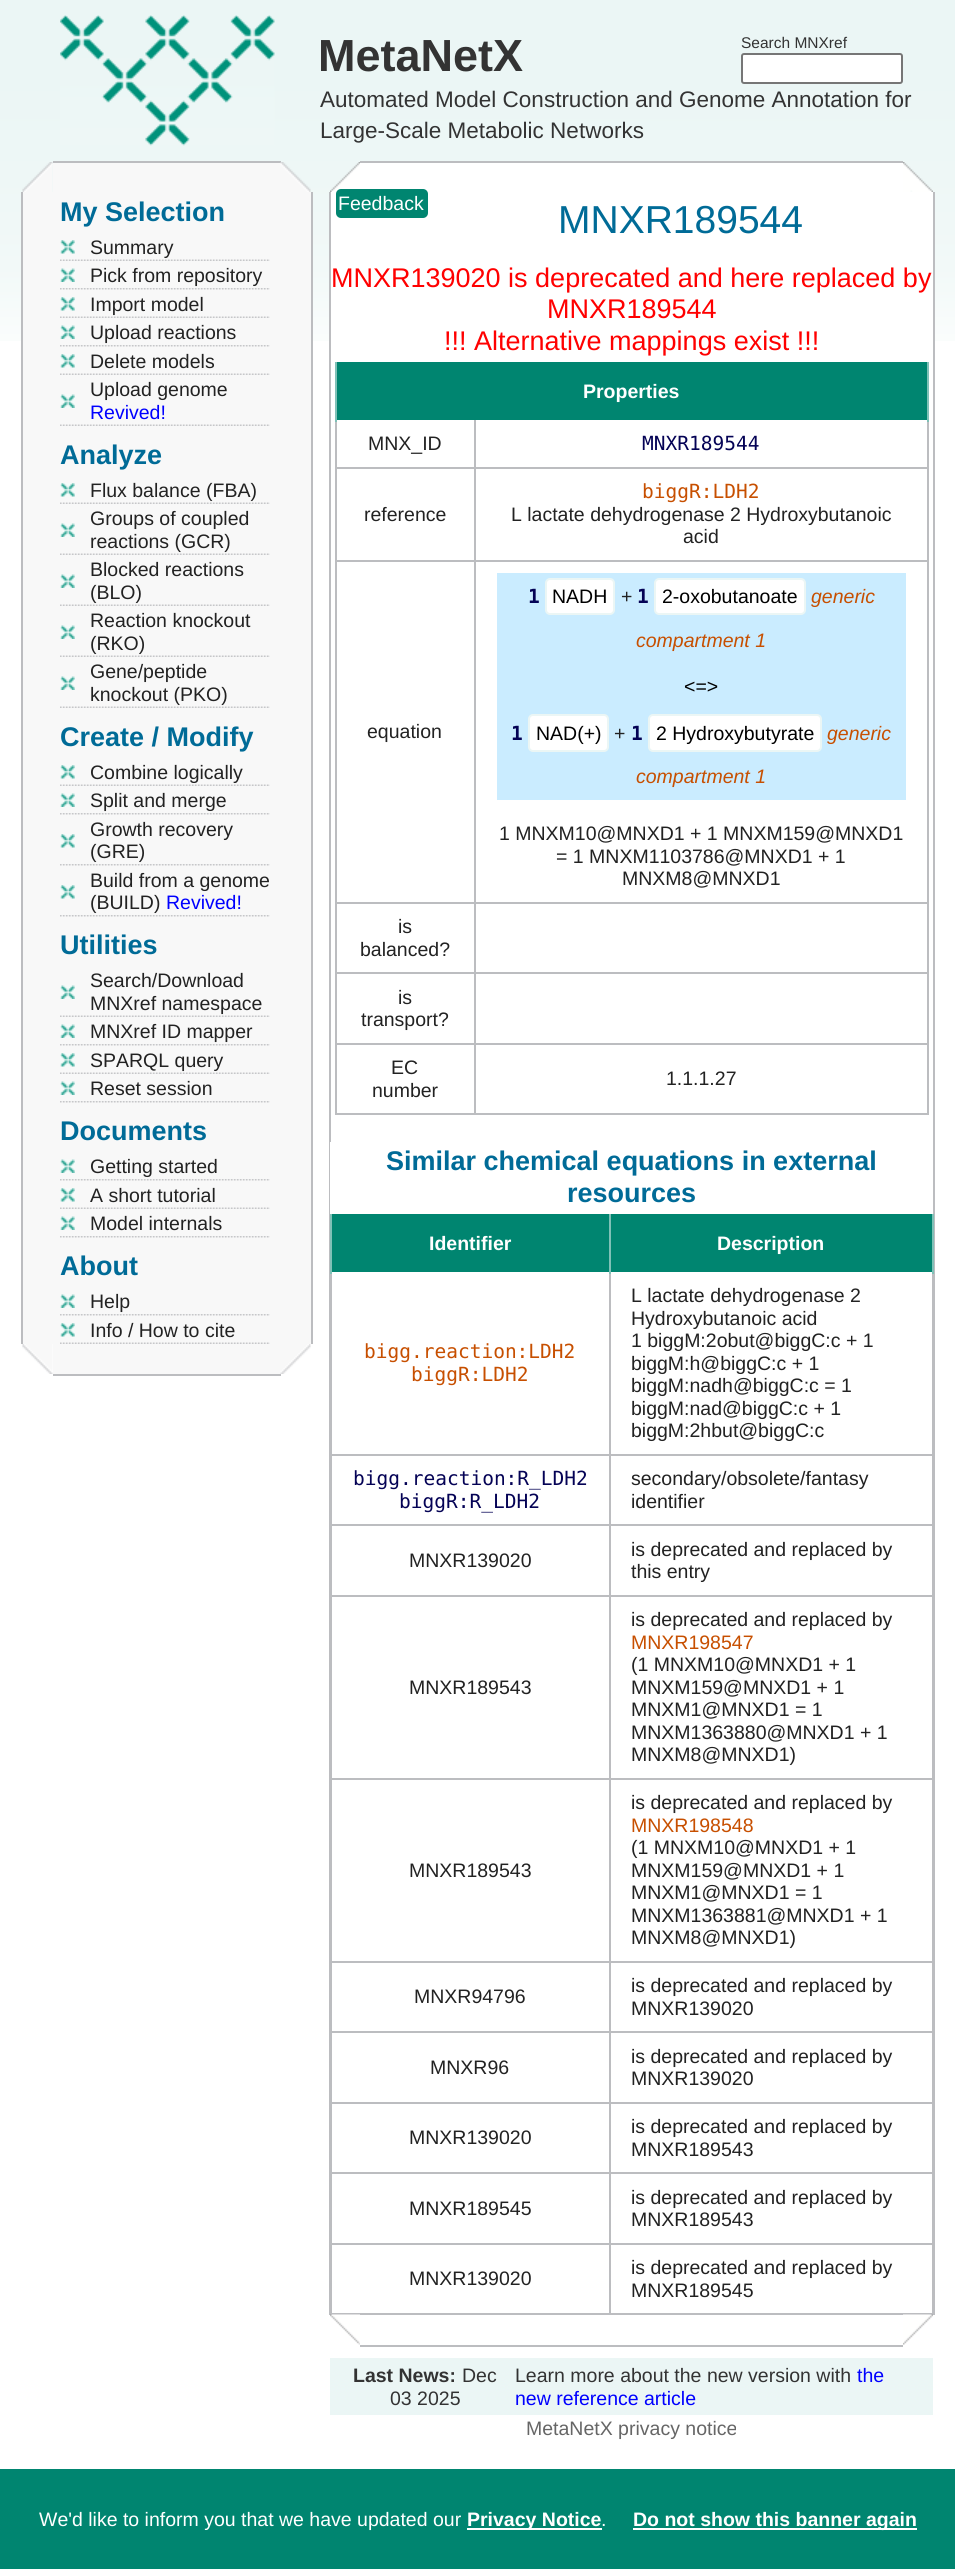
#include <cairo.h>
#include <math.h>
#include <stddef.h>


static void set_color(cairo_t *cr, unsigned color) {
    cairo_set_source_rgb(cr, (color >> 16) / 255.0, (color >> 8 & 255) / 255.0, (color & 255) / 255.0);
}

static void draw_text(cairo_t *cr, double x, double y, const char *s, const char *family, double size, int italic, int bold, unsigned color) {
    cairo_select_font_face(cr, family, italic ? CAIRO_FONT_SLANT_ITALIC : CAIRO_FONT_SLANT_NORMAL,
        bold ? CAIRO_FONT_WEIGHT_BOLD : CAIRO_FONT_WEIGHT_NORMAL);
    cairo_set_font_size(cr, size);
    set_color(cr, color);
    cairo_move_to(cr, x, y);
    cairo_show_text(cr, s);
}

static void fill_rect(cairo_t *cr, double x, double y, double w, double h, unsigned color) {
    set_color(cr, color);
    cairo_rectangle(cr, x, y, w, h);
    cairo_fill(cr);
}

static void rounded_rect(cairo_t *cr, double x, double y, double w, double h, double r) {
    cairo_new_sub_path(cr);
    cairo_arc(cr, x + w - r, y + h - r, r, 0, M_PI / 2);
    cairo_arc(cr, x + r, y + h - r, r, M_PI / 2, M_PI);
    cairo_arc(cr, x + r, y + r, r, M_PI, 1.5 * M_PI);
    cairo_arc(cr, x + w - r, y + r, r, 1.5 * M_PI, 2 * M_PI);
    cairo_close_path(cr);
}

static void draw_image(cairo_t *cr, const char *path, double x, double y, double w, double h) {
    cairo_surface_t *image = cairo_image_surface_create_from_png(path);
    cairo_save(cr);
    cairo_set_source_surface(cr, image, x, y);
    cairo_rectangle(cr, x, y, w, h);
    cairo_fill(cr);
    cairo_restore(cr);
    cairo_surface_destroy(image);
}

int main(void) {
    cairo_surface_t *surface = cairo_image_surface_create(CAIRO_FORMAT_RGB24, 955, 2569);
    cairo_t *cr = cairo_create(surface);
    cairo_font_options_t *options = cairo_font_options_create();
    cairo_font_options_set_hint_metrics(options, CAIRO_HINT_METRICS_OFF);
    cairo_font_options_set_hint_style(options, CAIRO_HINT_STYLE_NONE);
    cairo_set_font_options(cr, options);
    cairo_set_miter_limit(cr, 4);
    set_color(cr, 0xFFFFFF);
    cairo_paint(cr);
    draw_image(cr, "assets/img1.png", 0, 0, 955, 341);
    draw_text(cr, 741, 48, "Search MNXref", "Liberation Sans", 15.5, 0, 0, 0x333333);
    set_color(cr, 0xFFFFFF);
    rounded_rect(cr, 742, 54, 160, 29, 2);
    cairo_fill_preserve(cr);
    set_color(cr, 0x767676);
    cairo_stroke(cr);
    draw_image(cr, "assets/img2.png", 60, 15, 215, 131);
    draw_text(cr, 318, 71, "MetaNetX", "Liberation Sans", 45, 0, 1, 0x333333);
    draw_text(cr, 320, 107, "Automated Model Construction and Genome Annotation for", "Liberation Sans", 22.5, 0, 0, 0x333333);
    draw_text(cr, 320, 138, "Large-Scale Metabolic Networks", "Liberation Sans", 22.5, 0, 0, 0x333333);
    fill_rect(cr, 53, 163, 228, 29, 0xF8F8F8);
    fill_rect(cr, 53, 161, 228, 2, 0xBCBDC0);
    draw_image(cr, "assets/img3.png", 22, 162, 31, 30);
    draw_image(cr, "assets/img4.png", 280, 162, 31, 30);
    fill_rect(cr, 23, 192, 288, 1152, 0xF8F8F8);
    fill_rect(cr, 311, 192, 2, 1152, 0xBCBDC0);
    fill_rect(cr, 21, 192, 2, 1152, 0xBCBDC0);
    draw_text(cr, 60, 221, "My Selection", "Liberation Sans", 27, 0, 1, 0x006B97);
    draw_image(cr, "assets/img5.png", 60, 259, 210, 2);
    draw_image(cr, "assets/img6.png", 60, 240, 15, 14);
    draw_text(cr, 90, 254, "Summary", "Liberation Sans", 19.5, 0, 0, 0x222222);
    draw_image(cr, "assets/img7.png", 60, 288, 210, 2);
    draw_image(cr, "assets/img8.png", 60, 268, 15, 14);
    draw_text(cr, 90, 282, "Pick from repository", "Liberation Sans", 19.5, 0, 0, 0x222222);
    draw_image(cr, "assets/img5.png", 60, 316, 210, 2);
    draw_image(cr, "assets/img6.png", 60, 297, 15, 14);
    draw_text(cr, 90, 311, "Import model", "Liberation Sans", 19.5, 0, 0, 0x222222);
    draw_image(cr, "assets/img7.png", 60, 345, 210, 2);
    draw_image(cr, "assets/img8.png", 60, 325, 15, 14);
    draw_text(cr, 90, 339, "Upload reactions", "Liberation Sans", 19.5, 0, 0, 0x222222);
    draw_image(cr, "assets/img5.png", 60, 373, 210, 2);
    draw_image(cr, "assets/img6.png", 60, 354, 15, 14);
    draw_text(cr, 90, 368, "Delete models", "Liberation Sans", 19.5, 0, 0, 0x222222);
    draw_image(cr, "assets/img5.png", 60, 424, 210, 2);
    draw_image(cr, "assets/img8.png", 60, 394, 15, 14);
    draw_text(cr, 90, 396, "Upload genome", "Liberation Sans", 19.5, 0, 0, 0x222222);
    draw_text(cr, 90, 419, "Revived!", "Liberation Sans", 19.5, 0, 0, 0x0000FF);
    draw_text(cr, 60, 464, "Analyze", "Liberation Sans", 27, 0, 1, 0x006B97);
    draw_image(cr, "assets/img5.png", 60, 502, 210, 2);
    draw_image(cr, "assets/img6.png", 60, 483, 15, 14);
    draw_text(cr, 90, 497, "Flux balance (FBA)", "Liberation Sans", 19.5, 0, 0, 0x222222);
    draw_image(cr, "assets/img5.png", 60, 553, 210, 2);
    draw_image(cr, "assets/img8.png", 60, 523, 15, 14);
    draw_text(cr, 90, 525, "Groups of coupled", "Liberation Sans", 19.5, 0, 0, 0x222222);
    draw_text(cr, 90, 548, "reactions (GCR)", "Liberation Sans", 19.5, 0, 0, 0x222222);
    draw_image(cr, "assets/img5.png", 60, 604, 210, 2);
    draw_image(cr, "assets/img8.png", 60, 574, 15, 14);
    draw_text(cr, 90, 576, "Blocked reactions", "Liberation Sans", 19.5, 0, 0, 0x222222);
    draw_text(cr, 90, 599, "(BLO)", "Liberation Sans", 19.5, 0, 0, 0x222222);
    draw_image(cr, "assets/img5.png", 60, 655, 210, 2);
    draw_image(cr, "assets/img8.png", 60, 625, 15, 14);
    draw_text(cr, 90, 627, "Reaction knockout", "Liberation Sans", 19.5, 0, 0, 0x222222);
    draw_text(cr, 90, 650, "(RKO)", "Liberation Sans", 19.5, 0, 0, 0x222222);
    draw_image(cr, "assets/img5.png", 60, 706, 210, 2);
    draw_image(cr, "assets/img8.png", 60, 676, 15, 14);
    draw_text(cr, 90, 678, "Gene/peptide", "Liberation Sans", 19.5, 0, 0, 0x222222);
    draw_text(cr, 90, 701, "knockout (PKO)", "Liberation Sans", 19.5, 0, 0, 0x222222);
    draw_text(cr, 60, 746, "Create / Modify", "Liberation Sans", 27, 0, 1, 0x006B97);
    draw_image(cr, "assets/img5.png", 60, 784, 210, 2);
    draw_image(cr, "assets/img6.png", 60, 765, 15, 14);
    draw_text(cr, 90, 779, "Combine logically", "Liberation Sans", 19.5, 0, 0, 0x222222);
    draw_image(cr, "assets/img7.png", 60, 813, 210, 2);
    draw_image(cr, "assets/img8.png", 60, 793, 15, 14);
    draw_text(cr, 90, 807, "Split and merge", "Liberation Sans", 19.5, 0, 0, 0x222222);
    draw_image(cr, "assets/img7.png", 60, 864, 210, 2);
    draw_image(cr, "assets/img6.png", 60, 834, 15, 14);
    draw_text(cr, 90, 836, "Growth recovery", "Liberation Sans", 19.5, 0, 0, 0x222222);
    draw_text(cr, 90, 858, "(GRE)", "Liberation Sans", 19.5, 0, 0, 0x222222);
    draw_image(cr, "assets/img7.png", 60, 915, 210, 2);
    draw_image(cr, "assets/img6.png", 60, 885, 15, 14);
    draw_text(cr, 90, 887, "Build from a genome", "Liberation Sans", 19.5, 0, 0, 0x222222);
    draw_text(cr, 90, 909, "(BUILD)", "Liberation Sans", 19.5, 0, 0, 0x222222);
    draw_text(cr, 166, 909, "Revived!", "Liberation Sans", 19.5, 0, 0, 0x0000FF);
    draw_text(cr, 60, 954, "Utilities", "Liberation Sans", 27, 0, 1, 0x006B97);
    draw_image(cr, "assets/img5.png", 60, 1015, 210, 2);
    draw_image(cr, "assets/img8.png", 60, 985, 15, 14);
    draw_text(cr, 90, 987, "Search/Download", "Liberation Sans", 19.5, 0, 0, 0x222222);
    draw_text(cr, 90, 1010, "MNXref namespace", "Liberation Sans", 19.5, 0, 0, 0x222222);
    draw_image(cr, "assets/img7.png", 60, 1044, 210, 2);
    draw_image(cr, "assets/img8.png", 60, 1024, 15, 14);
    draw_text(cr, 90, 1038, "MNXref ID mapper", "Liberation Sans", 19.5, 0, 0, 0x222222);
    draw_image(cr, "assets/img5.png", 60, 1072, 210, 2);
    draw_image(cr, "assets/img6.png", 60, 1053, 15, 14);
    draw_text(cr, 90, 1067, "SPARQL query", "Liberation Sans", 19.5, 0, 0, 0x222222);
    draw_image(cr, "assets/img7.png", 60, 1101, 210, 2);
    draw_image(cr, "assets/img8.png", 60, 1081, 15, 14);
    draw_text(cr, 90, 1095, "Reset session", "Liberation Sans", 19.5, 0, 0, 0x222222);
    draw_text(cr, 60, 1140, "Documents", "Liberation Sans", 27, 0, 1, 0x006B97);
    draw_image(cr, "assets/img7.png", 60, 1179, 210, 2);
    draw_image(cr, "assets/img8.png", 60, 1159, 15, 14);
    draw_text(cr, 90, 1173, "Getting started", "Liberation Sans", 19.5, 0, 0, 0x222222);
    draw_image(cr, "assets/img5.png", 60, 1207, 210, 2);
    draw_image(cr, "assets/img6.png", 60, 1188, 15, 14);
    draw_text(cr, 90, 1202, "A short tutorial", "Liberation Sans", 19.5, 0, 0, 0x222222);
    draw_image(cr, "assets/img7.png", 60, 1236, 210, 2);
    draw_image(cr, "assets/img8.png", 60, 1216, 15, 14);
    draw_text(cr, 90, 1230, "Model internals", "Liberation Sans", 19.5, 0, 0, 0x222222);
    draw_text(cr, 60, 1275, "About", "Liberation Sans", 27, 0, 1, 0x006B97);
    draw_image(cr, "assets/img7.png", 60, 1314, 210, 2);
    draw_image(cr, "assets/img8.png", 60, 1294, 15, 14);
    draw_text(cr, 90, 1308, "Help", "Liberation Sans", 19.5, 0, 0, 0x222222);
    draw_image(cr, "assets/img5.png", 60, 1342, 210, 2);
    draw_image(cr, "assets/img6.png", 60, 1323, 15, 14);
    draw_text(cr, 90, 1337, "Info / How to cite", "Liberation Sans", 19.5, 0, 0, 0x222222);
    fill_rect(cr, 53, 1344, 228, 30, 0xF8F8F8);
    fill_rect(cr, 53, 1374, 228, 2, 0xBCBDC0);
    draw_image(cr, "assets/img9.png", 22, 1344, 31, 30);
    draw_image(cr, "assets/img10.png", 280, 1344, 31, 30);
    fill_rect(cr, 360, 163, 543, 29, 0xFFFFFF);
    fill_rect(cr, 360, 161, 543, 2, 0xBCBDC0);
    draw_image(cr, "assets/img11.png", 330, 162, 30, 30);
    draw_image(cr, "assets/img12.png", 903, 162, 30, 30);
    fill_rect(cr, 331, 192, 602, 149, 0xFFFFFF);
    fill_rect(cr, 933, 192, 2, 2123, 0xBCBDC0);
    fill_rect(cr, 329, 192, 2, 2123, 0xBCBDC0);
    set_color(cr, 0x008570);
    rounded_rect(cr, 336, 189, 92, 29, 5);
    cairo_fill(cr);
    draw_text(cr, 338, 210, "Feedback", "Liberation Sans", 19.5, 0, 0, 0xFFFFFF);
    draw_text(cr, 558, 233, "MNXR189544", "Liberation Sans", 39, 0, 0, 0x006B97);
    draw_text(cr, 331, 287, "MNXR139020 is deprecated and here replaced by", "Liberation Sans", 27, 0, 0, 0xFF0000);
    draw_text(cr, 547, 318, "MNXR189544", "Liberation Sans", 27, 0, 0, 0xFF0000);
    draw_text(cr, 444, 350, "!!! Alternative mappings exist !!!", "Liberation Sans", 27, 0, 0, 0xFF0000);
    fill_rect(cr, 337, 362, 590, 58, 0x008570);
    fill_rect(cr, 927, 420, 2, 695, 0xBCBDC0);
    fill_rect(cr, 927, 362, 2, 60, 0x80C1B7);
    fill_rect(cr, 474, 1113, 455, 2, 0xBCBDC0);
    fill_rect(cr, 474, 1043, 2, 72, 0xBCBDC0);
    fill_rect(cr, 474, 1043, 455, 2, 0xBCBDC0);
    fill_rect(cr, 474, 972, 2, 72, 0xBCBDC0);
    fill_rect(cr, 474, 972, 455, 2, 0xBCBDC0);
    fill_rect(cr, 474, 902, 2, 72, 0xBCBDC0);
    fill_rect(cr, 474, 902, 455, 2, 0xBCBDC0);
    fill_rect(cr, 474, 560, 2, 343, 0xBCBDC0);
    fill_rect(cr, 474, 560, 455, 2, 0xBCBDC0);
    fill_rect(cr, 474, 467, 2, 94, 0xBCBDC0);
    fill_rect(cr, 474, 467, 455, 2, 0xBCBDC0);
    fill_rect(cr, 474, 420, 2, 48, 0xBCBDC0);
    fill_rect(cr, 335, 1113, 141, 2, 0xBCBDC0);
    fill_rect(cr, 335, 1043, 2, 72, 0xBCBDC0);
    fill_rect(cr, 335, 1043, 141, 2, 0xBCBDC0);
    fill_rect(cr, 335, 972, 2, 72, 0xBCBDC0);
    fill_rect(cr, 335, 972, 141, 2, 0xBCBDC0);
    fill_rect(cr, 335, 902, 2, 72, 0xBCBDC0);
    fill_rect(cr, 335, 902, 141, 2, 0xBCBDC0);
    fill_rect(cr, 335, 560, 2, 343, 0xBCBDC0);
    fill_rect(cr, 335, 560, 141, 2, 0xBCBDC0);
    fill_rect(cr, 335, 467, 2, 94, 0xBCBDC0);
    fill_rect(cr, 335, 467, 141, 2, 0xBCBDC0);
    fill_rect(cr, 335, 420, 2, 48, 0xBCBDC0);
    fill_rect(cr, 335, 362, 2, 60, 0x80C1B7);
    draw_text(cr, 583, 398, "Properties", "Liberation Sans", 19.5, 0, 1, 0xFFFFFF);
    draw_text(cr, 368, 450, "MNX_ID", "Liberation Sans", 19.5, 0, 0, 0x222222);
    draw_text(cr, 642, 450, "MNXR189544", "DejaVu Sans Mono", 19.5, 0, 0, 0x040255);
    draw_text(cr, 364, 521, "reference", "Liberation Sans", 19.5, 0, 0, 0x222222);
    draw_text(cr, 642, 498, "biggR:LDH2", "DejaVu Sans Mono", 19.5, 0, 0, 0xC74F00);
    draw_text(cr, 511, 521, "L lactate dehydrogenase 2 Hydroxybutanoic", "Liberation Sans", 19.5, 0, 0, 0x222222);
    draw_text(cr, 683, 543, "acid", "Liberation Sans", 19.5, 0, 0, 0x222222);
    draw_text(cr, 367, 738, "equation", "Liberation Sans", 19.5, 0, 0, 0x222222);
    fill_rect(cr, 497, 573, 409, 227, 0xCAECFF);
    draw_text(cr, 528, 603, "1", "DejaVu Sans Mono", 19.5, 0, 1, 0x040255);
    set_color(cr, 0xFFFFFF);
    rounded_rect(cr, 546, 579, 68, 35, 4);
    cairo_fill_preserve(cr);
    set_color(cr, 0xEBF6F5);
    cairo_stroke(cr);
    draw_text(cr, 552, 603, "NADH", "Liberation Sans", 19.5, 0, 0, 0x000000);
    draw_text(cr, 621, 603, "+", "Liberation Sans", 19.5, 0, 0, 0x222222);
    draw_text(cr, 637, 603, "1", "DejaVu Sans Mono", 19.5, 0, 1, 0x040255);
    set_color(cr, 0xFFFFFF);
    rounded_rect(cr, 655, 579, 150, 35, 4);
    cairo_fill_preserve(cr);
    set_color(cr, 0xEBF6F5);
    cairo_stroke(cr);
    draw_text(cr, 662, 603, "2-oxobutanoate", "Liberation Sans", 19.5, 0, 0, 0x000000);
    draw_text(cr, 811, 603, "generic", "Liberation Sans", 19.5, 1, 0, 0xC74F00);
    draw_text(cr, 636, 647, "compartment 1", "Liberation Sans", 19.5, 1, 0, 0xC74F00);
    draw_text(cr, 684, 693, "<=>", "Liberation Sans", 19.5, 0, 0, 0x000000);
    draw_text(cr, 511, 740, "1", "DejaVu Sans Mono", 19.5, 0, 1, 0x040255);
    set_color(cr, 0xFFFFFF);
    rounded_rect(cr, 529, 715, 79, 36, 4);
    cairo_fill_preserve(cr);
    set_color(cr, 0xEBF6F5);
    cairo_stroke(cr);
    draw_text(cr, 536, 740, "NAD(+)", "Liberation Sans", 19.5, 0, 0, 0x000000);
    draw_text(cr, 614, 740, "+", "Liberation Sans", 19.5, 0, 0, 0x222222);
    draw_text(cr, 631, 740, "1", "DejaVu Sans Mono", 19.5, 0, 1, 0x040255);
    set_color(cr, 0xFFFFFF);
    rounded_rect(cr, 649, 715, 172, 36, 4);
    cairo_fill_preserve(cr);
    set_color(cr, 0xEBF6F5);
    cairo_stroke(cr);
    draw_text(cr, 656, 740, "2 Hydroxybutyrate", "Liberation Sans", 19.5, 0, 0, 0x000000);
    draw_text(cr, 827, 740, "generic", "Liberation Sans", 19.5, 1, 0, 0xC74F00);
    draw_text(cr, 636, 783, "compartment 1", "Liberation Sans", 19.5, 1, 0, 0xC74F00);
    draw_text(cr, 499, 840, "1 MNXM10@MNXD1 + 1 MNXM159@MNXD1", "Liberation Sans", 19.5, 0, 0, 0x222222);
    draw_text(cr, 556, 863, "= 1 MNXM1103786@MNXD1 + 1", "Liberation Sans", 19.5, 0, 0, 0x222222);
    draw_text(cr, 622, 885, "MNXM8@MNXD1", "Liberation Sans", 19.5, 0, 0, 0x222222);
    draw_text(cr, 398, 933, "is", "Liberation Sans", 19.5, 0, 0, 0x222222);
    draw_text(cr, 360, 956, "balanced?", "Liberation Sans", 19.5, 0, 0, 0x222222);
    draw_text(cr, 398, 1004, "is", "Liberation Sans", 19.5, 0, 0, 0x222222);
    draw_text(cr, 361, 1026, "transport?", "Liberation Sans", 19.5, 0, 0, 0x222222);
    draw_text(cr, 391, 1074, "EC", "Liberation Sans", 19.5, 0, 0, 0x222222);
    draw_text(cr, 372, 1097, "number", "Liberation Sans", 19.5, 0, 0, 0x222222);
    draw_text(cr, 666, 1085, "1.1.1.27", "Liberation Sans", 19.5, 0, 0, 0x222222);
    fill_rect(cr, 330, 1142, 1, 1171, 0xFFFFFF);
    draw_text(cr, 386, 1170, "Similar chemical equations in external", "Liberation Sans", 27, 0, 1, 0x006B97);
    draw_text(cr, 567, 1202, "resources", "Liberation Sans", 27, 0, 1, 0x006B97);
    fill_rect(cr, 332, 1214, 277, 58, 0x008570);
    fill_rect(cr, 932, 1272, 1, 1043, 0xBCBDC0);
    fill_rect(cr, 609, 2313, 324, 2, 0xBCBDC0);
    fill_rect(cr, 609, 2243, 2, 72, 0xBCBDC0);
    fill_rect(cr, 609, 2243, 324, 2, 0xBCBDC0);
    fill_rect(cr, 609, 2172, 2, 72, 0xBCBDC0);
    fill_rect(cr, 609, 2172, 324, 2, 0xBCBDC0);
    fill_rect(cr, 609, 2102, 2, 72, 0xBCBDC0);
    fill_rect(cr, 609, 2102, 324, 2, 0xBCBDC0);
    fill_rect(cr, 609, 2031, 2, 72, 0xBCBDC0);
    fill_rect(cr, 609, 2031, 324, 2, 0xBCBDC0);
    fill_rect(cr, 609, 1961, 2, 72, 0xBCBDC0);
    fill_rect(cr, 609, 1961, 324, 2, 0xBCBDC0);
    fill_rect(cr, 609, 1778, 2, 184, 0xBCBDC0);
    fill_rect(cr, 609, 1778, 324, 2, 0xBCBDC0);
    fill_rect(cr, 609, 1595, 2, 184, 0xBCBDC0);
    fill_rect(cr, 609, 1595, 324, 2, 0xBCBDC0);
    fill_rect(cr, 609, 1524, 2, 72, 0xBCBDC0);
    fill_rect(cr, 609, 1524, 324, 2, 0xBCBDC0);
    fill_rect(cr, 609, 1454, 2, 72, 0xBCBDC0);
    fill_rect(cr, 609, 1454, 324, 2, 0xBCBDC0);
    fill_rect(cr, 609, 1272, 2, 183, 0xBCBDC0);
    fill_rect(cr, 330, 2313, 281, 2, 0xBCBDC0);
    fill_rect(cr, 330, 2243, 2, 72, 0xBCBDC0);
    fill_rect(cr, 330, 2243, 281, 2, 0xBCBDC0);
    fill_rect(cr, 330, 2172, 2, 72, 0xBCBDC0);
    fill_rect(cr, 330, 2172, 281, 2, 0xBCBDC0);
    fill_rect(cr, 330, 2102, 2, 72, 0xBCBDC0);
    fill_rect(cr, 330, 2102, 281, 2, 0xBCBDC0);
    fill_rect(cr, 330, 2031, 2, 72, 0xBCBDC0);
    fill_rect(cr, 330, 2031, 281, 2, 0xBCBDC0);
    fill_rect(cr, 330, 1961, 2, 72, 0xBCBDC0);
    fill_rect(cr, 330, 1961, 281, 2, 0xBCBDC0);
    fill_rect(cr, 330, 1778, 2, 184, 0xBCBDC0);
    fill_rect(cr, 330, 1778, 281, 2, 0xBCBDC0);
    fill_rect(cr, 330, 1595, 2, 184, 0xBCBDC0);
    fill_rect(cr, 330, 1595, 281, 2, 0xBCBDC0);
    fill_rect(cr, 330, 1524, 2, 72, 0xBCBDC0);
    fill_rect(cr, 330, 1524, 281, 2, 0xBCBDC0);
    fill_rect(cr, 330, 1454, 2, 72, 0xBCBDC0);
    fill_rect(cr, 330, 1454, 281, 2, 0xBCBDC0);
    fill_rect(cr, 330, 1272, 2, 183, 0xBCBDC0);
    fill_rect(cr, 330, 1214, 2, 60, 0x80C1B7);
    draw_text(cr, 429, 1250, "Identifier", "Liberation Sans", 19.5, 0, 1, 0xFFFFFF);
    fill_rect(cr, 611, 1214, 321, 58, 0x008570);
    fill_rect(cr, 932, 1214, 2, 60, 0x80C1B7);
    fill_rect(cr, 609, 1214, 2, 60, 0x80C1B7);
    draw_text(cr, 717, 1250, "Description", "Liberation Sans", 19.5, 0, 1, 0xFFFFFF);
    draw_text(cr, 364, 1358, "bigg.reaction:LDH2", "DejaVu Sans Mono", 19.5, 0, 0, 0xC74F00);
    draw_text(cr, 411, 1381, "biggR:LDH2", "DejaVu Sans Mono", 19.5, 0, 0, 0xC74F00);
    draw_text(cr, 631, 1302, "L lactate dehydrogenase 2", "Liberation Sans", 19.5, 0, 0, 0x222222);
    draw_text(cr, 631, 1325, "Hydroxybutanoic acid", "Liberation Sans", 19.5, 0, 0, 0x222222);
    draw_text(cr, 631, 1347, "1 biggM:2obut@biggC:c + 1", "Liberation Sans", 19.5, 0, 0, 0x222222);
    draw_text(cr, 631, 1370, "biggM:h@biggC:c + 1", "Liberation Sans", 19.5, 0, 0, 0x222222);
    draw_text(cr, 631, 1392, "biggM:nadh@biggC:c = 1", "Liberation Sans", 19.5, 0, 0, 0x222222);
    draw_text(cr, 631, 1415, "biggM:nad@biggC:c + 1", "Liberation Sans", 19.5, 0, 0, 0x222222);
    draw_text(cr, 631, 1437, "biggM:2hbut@biggC:c", "Liberation Sans", 19.5, 0, 0, 0x222222);
    draw_text(cr, 353, 1485, "bigg.reaction:R_LDH2", "DejaVu Sans Mono", 19.5, 0, 0, 0x040255);
    draw_text(cr, 399, 1508, "biggR:R_LDH2", "DejaVu Sans Mono", 19.5, 0, 0, 0x040255);
    draw_text(cr, 631, 1485, "secondary/obsolete/fantasy", "Liberation Sans", 19.5, 0, 0, 0x222222);
    draw_text(cr, 631, 1508, "identifier", "Liberation Sans", 19.5, 0, 0, 0x222222);
    draw_text(cr, 409, 1567, "MNXR139020", "Liberation Sans", 19.5, 0, 0, 0x222222);
    draw_text(cr, 631, 1556, "is deprecated and replaced by", "Liberation Sans", 19.5, 0, 0, 0x222222);
    draw_text(cr, 631, 1578, "this entry", "Liberation Sans", 19.5, 0, 0, 0x222222);
    draw_text(cr, 409, 1694, "MNXR189543", "Liberation Sans", 19.5, 0, 0, 0x222222);
    draw_text(cr, 631, 1626, "is deprecated and replaced by", "Liberation Sans", 19.5, 0, 0, 0x222222);
    draw_text(cr, 631, 1649, "MNXR198547", "Liberation Sans", 19.5, 0, 0, 0xC74F00);
    draw_text(cr, 631, 1671, "(1 MNXM10@MNXD1 + 1", "Liberation Sans", 19.5, 0, 0, 0x222222);
    draw_text(cr, 631, 1694, "MNXM159@MNXD1 + 1", "Liberation Sans", 19.5, 0, 0, 0x222222);
    draw_text(cr, 631, 1716, "MNXM1@MNXD1 = 1", "Liberation Sans", 19.5, 0, 0, 0x222222);
    draw_text(cr, 631, 1739, "MNXM1363880@MNXD1 + 1", "Liberation Sans", 19.5, 0, 0, 0x222222);
    draw_text(cr, 631, 1761, "MNXM8@MNXD1)", "Liberation Sans", 19.5, 0, 0, 0x222222);
    draw_text(cr, 409, 1877, "MNXR189543", "Liberation Sans", 19.5, 0, 0, 0x222222);
    draw_text(cr, 631, 1809, "is deprecated and replaced by", "Liberation Sans", 19.5, 0, 0, 0x222222);
    draw_text(cr, 631, 1832, "MNXR198548", "Liberation Sans", 19.5, 0, 0, 0xC74F00);
    draw_text(cr, 631, 1854, "(1 MNXM10@MNXD1 + 1", "Liberation Sans", 19.5, 0, 0, 0x222222);
    draw_text(cr, 631, 1877, "MNXM159@MNXD1 + 1", "Liberation Sans", 19.5, 0, 0, 0x222222);
    draw_text(cr, 631, 1899, "MNXM1@MNXD1 = 1", "Liberation Sans", 19.5, 0, 0, 0x222222);
    draw_text(cr, 631, 1922, "MNXM1363881@MNXD1 + 1", "Liberation Sans", 19.5, 0, 0, 0x222222);
    draw_text(cr, 631, 1944, "MNXM8@MNXD1)", "Liberation Sans", 19.5, 0, 0, 0x222222);
    draw_text(cr, 414, 2003, "MNXR94796", "Liberation Sans", 19.5, 0, 0, 0x222222);
    draw_text(cr, 631, 1992, "is deprecated and replaced by", "Liberation Sans", 19.5, 0, 0, 0x222222);
    draw_text(cr, 631, 2015, "MNXR139020", "Liberation Sans", 19.5, 0, 0, 0x222222);
    draw_text(cr, 430, 2074, "MNXR96", "Liberation Sans", 19.5, 0, 0, 0x222222);
    draw_text(cr, 631, 2063, "is deprecated and replaced by", "Liberation Sans", 19.5, 0, 0, 0x222222);
    draw_text(cr, 631, 2085, "MNXR139020", "Liberation Sans", 19.5, 0, 0, 0x222222);
    draw_text(cr, 409, 2144, "MNXR139020", "Liberation Sans", 19.5, 0, 0, 0x222222);
    draw_text(cr, 631, 2133, "is deprecated and replaced by", "Liberation Sans", 19.5, 0, 0, 0x222222);
    draw_text(cr, 631, 2156, "MNXR189543", "Liberation Sans", 19.5, 0, 0, 0x222222);
    draw_text(cr, 409, 2215, "MNXR189545", "Liberation Sans", 19.5, 0, 0, 0x222222);
    draw_text(cr, 631, 2204, "is deprecated and replaced by", "Liberation Sans", 19.5, 0, 0, 0x222222);
    draw_text(cr, 631, 2226, "MNXR189543", "Liberation Sans", 19.5, 0, 0, 0x222222);
    draw_text(cr, 409, 2285, "MNXR139020", "Liberation Sans", 19.5, 0, 0, 0x222222);
    draw_text(cr, 631, 2274, "is deprecated and replaced by", "Liberation Sans", 19.5, 0, 0, 0x222222);
    draw_text(cr, 631, 2297, "MNXR189545", "Liberation Sans", 19.5, 0, 0, 0x222222);
    fill_rect(cr, 360, 2345, 543, 2, 0xBCBDC0);
    draw_image(cr, "assets/img13.png", 330, 2314, 30, 31);
    draw_image(cr, "assets/img14.png", 903, 2314, 30, 31);
    fill_rect(cr, 330, 2358, 603, 57, 0xEBF6F5);
    draw_text(cr, 353, 2382, "Last News:", "Liberation Sans", 19.5, 0, 1, 0x333333);
    draw_text(cr, 462, 2382, "Dec", "Liberation Sans", 19.5, 0, 0, 0x333333);
    draw_text(cr, 390, 2405, "03 2025", "Liberation Sans", 19.5, 0, 0, 0x333333);
    draw_text(cr, 515, 2382, "Learn more about the new version with", "Liberation Sans", 19.5, 0, 0, 0x333333);
    draw_text(cr, 857, 2382, "the", "Liberation Sans", 19.5, 0, 0, 0x0000FF);
    draw_text(cr, 515, 2405, "new reference article", "Liberation Sans", 19.5, 0, 0, 0x0000FF);
    draw_text(cr, 526, 2435, "MetaNetX privacy notice", "Liberation Sans", 19.5, 0, 0, 0x666666);
    fill_rect(cr, 0, 2469, 955, 100, 0x008570);
    draw_text(cr, 39, 2526, "We'd like to inform you that we have updated our", "Liberation Sans", 19.5, 0, 0, 0xFFFFFF);
    fill_rect(cr, 467, 2528, 135, 2, 0xFFFFFF);
    draw_text(cr, 467, 2526, "Privacy Notice", "Liberation Sans", 19.5, 0, 1, 0xFFFFFF);
    draw_text(cr, 601, 2526, ".", "Liberation Sans", 19.5, 0, 0, 0xFFFFFF);
    fill_rect(cr, 633, 2528, 284, 2, 0xFFFFFF);
    draw_text(cr, 633, 2526, "Do not show this banner again", "Liberation Sans", 19.5, 0, 1, 0xFFFFFF);
    cairo_surface_write_to_png(surface, "output.png");
    cairo_font_options_destroy(options);
    cairo_destroy(cr);
    cairo_surface_destroy(surface);
    return 0;
}
